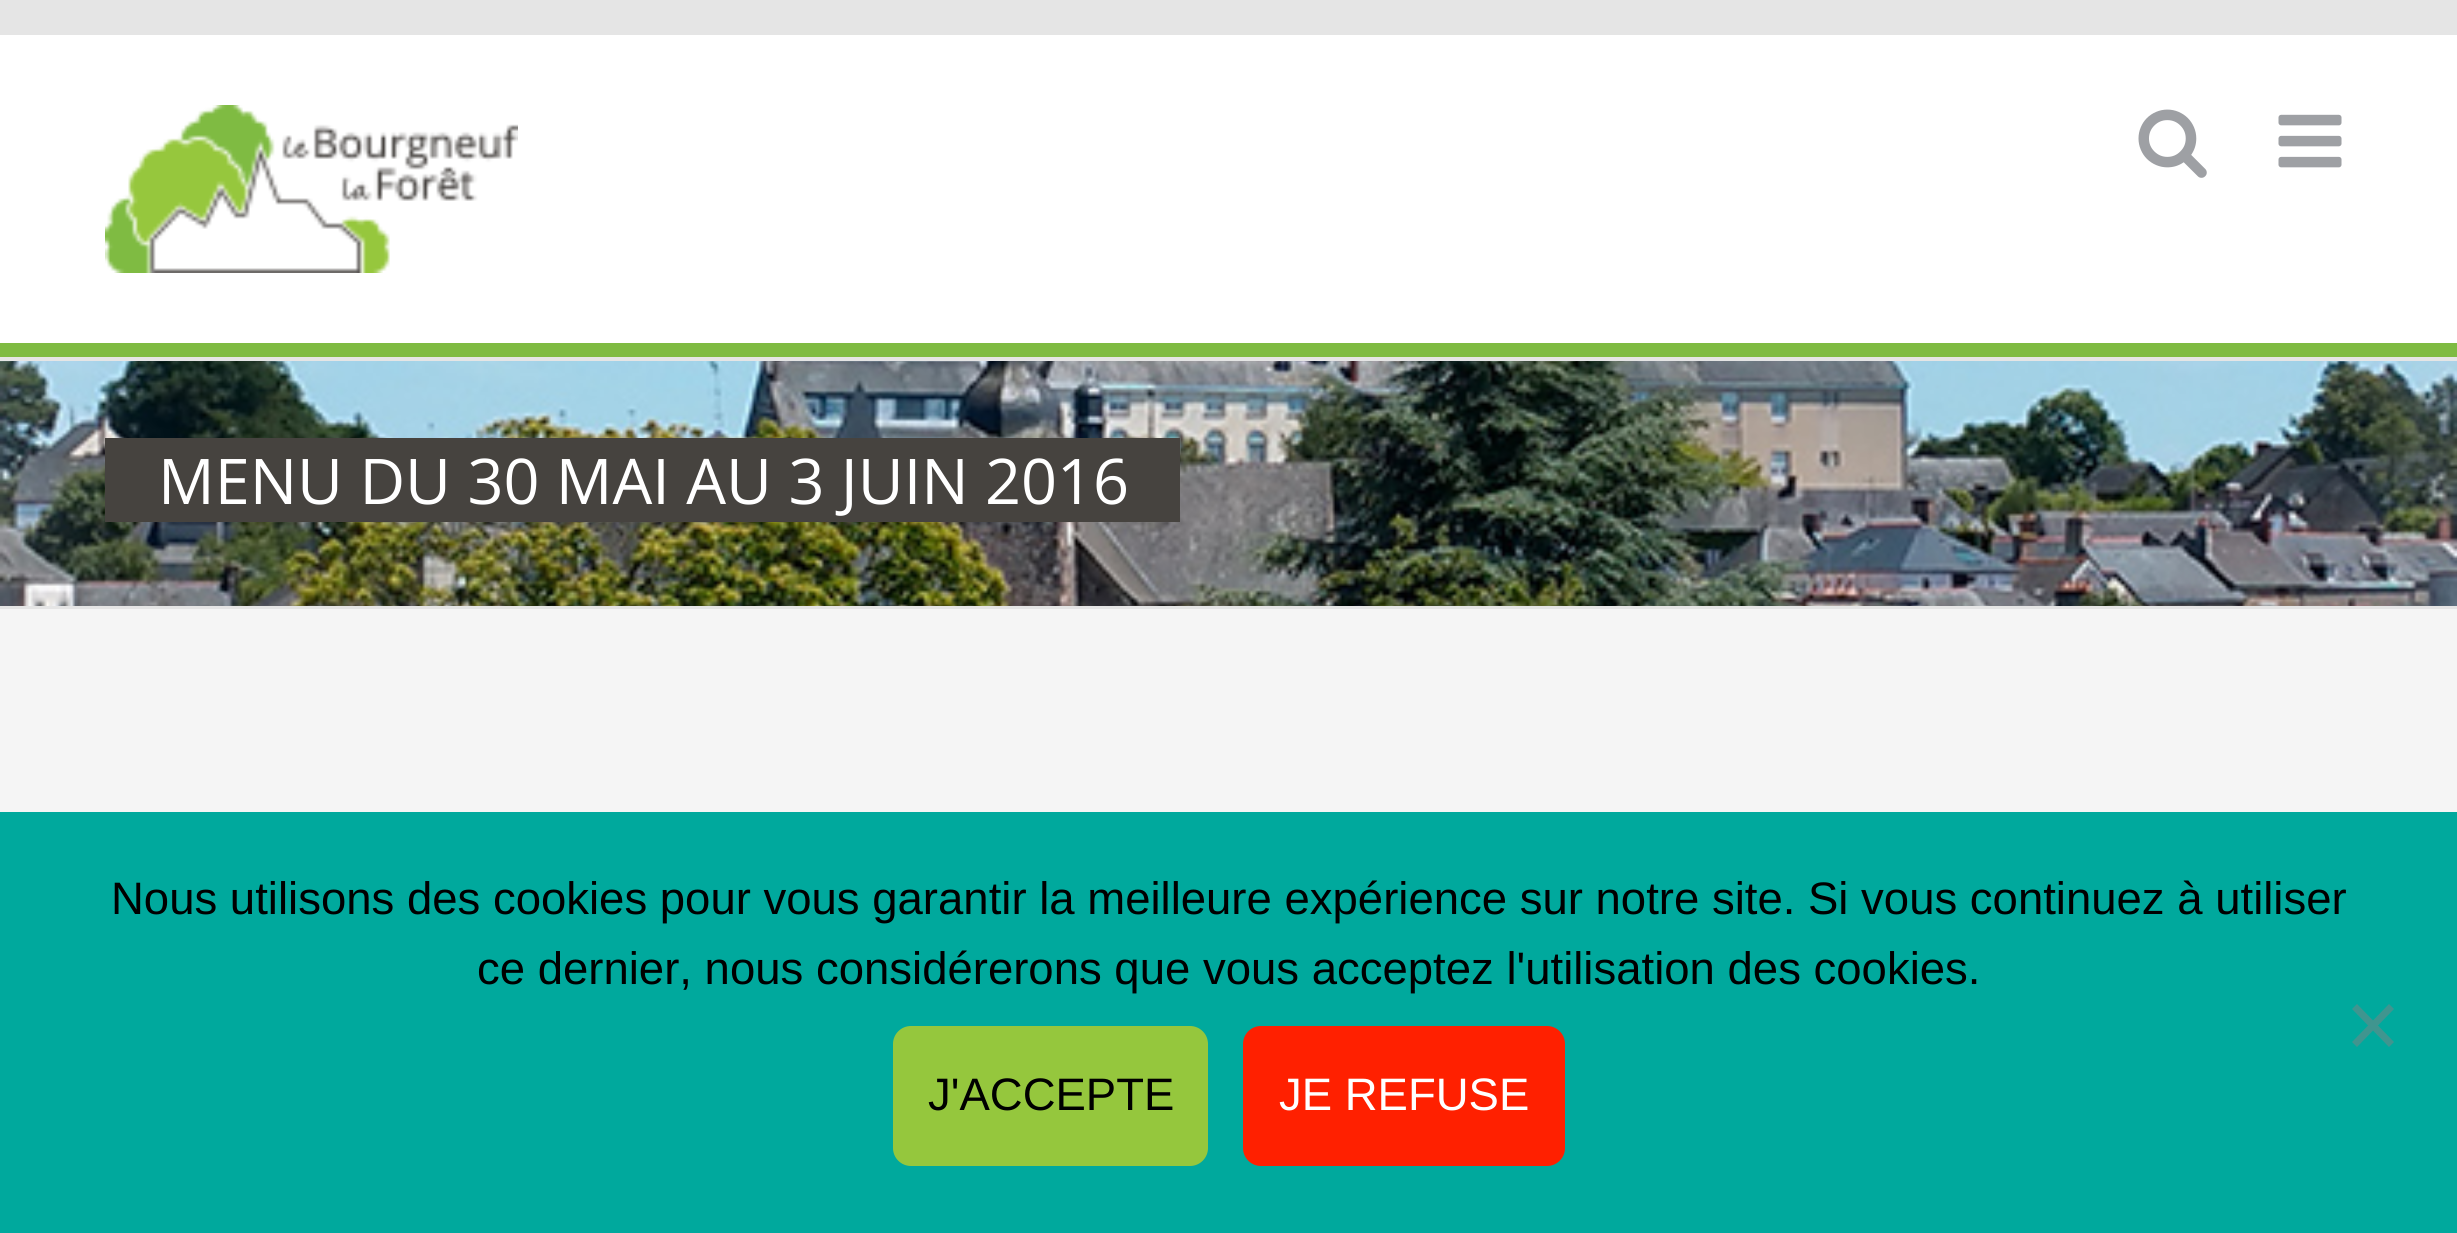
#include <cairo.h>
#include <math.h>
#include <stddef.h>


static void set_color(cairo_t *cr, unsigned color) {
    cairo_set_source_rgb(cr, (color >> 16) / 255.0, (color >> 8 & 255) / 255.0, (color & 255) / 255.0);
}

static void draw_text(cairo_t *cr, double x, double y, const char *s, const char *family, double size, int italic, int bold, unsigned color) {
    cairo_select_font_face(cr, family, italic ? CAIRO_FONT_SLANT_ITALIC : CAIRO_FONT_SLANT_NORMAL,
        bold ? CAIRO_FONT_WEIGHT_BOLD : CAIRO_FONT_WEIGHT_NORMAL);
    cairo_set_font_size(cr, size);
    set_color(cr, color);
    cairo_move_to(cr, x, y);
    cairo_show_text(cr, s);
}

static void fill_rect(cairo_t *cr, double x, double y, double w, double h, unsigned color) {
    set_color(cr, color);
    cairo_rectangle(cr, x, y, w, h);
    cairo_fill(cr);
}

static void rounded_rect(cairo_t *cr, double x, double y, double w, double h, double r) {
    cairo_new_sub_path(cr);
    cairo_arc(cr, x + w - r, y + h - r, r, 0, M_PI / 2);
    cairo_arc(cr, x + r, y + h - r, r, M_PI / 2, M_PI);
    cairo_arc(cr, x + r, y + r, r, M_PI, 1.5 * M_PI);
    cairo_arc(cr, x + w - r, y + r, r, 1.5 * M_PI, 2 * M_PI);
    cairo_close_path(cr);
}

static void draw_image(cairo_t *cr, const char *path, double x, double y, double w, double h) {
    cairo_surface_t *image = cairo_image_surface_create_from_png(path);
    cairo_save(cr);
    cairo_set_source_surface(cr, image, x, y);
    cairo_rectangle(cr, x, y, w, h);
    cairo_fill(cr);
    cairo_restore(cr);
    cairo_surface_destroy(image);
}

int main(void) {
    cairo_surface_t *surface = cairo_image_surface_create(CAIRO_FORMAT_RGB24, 2457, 1233);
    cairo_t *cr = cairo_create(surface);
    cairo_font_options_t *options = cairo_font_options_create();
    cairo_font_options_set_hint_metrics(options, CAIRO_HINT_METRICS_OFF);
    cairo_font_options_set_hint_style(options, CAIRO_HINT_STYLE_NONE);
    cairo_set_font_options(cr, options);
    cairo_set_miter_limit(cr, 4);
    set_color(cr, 0xE5E5E5);
    cairo_paint(cr);
    fill_rect(cr, 0, 343, 2457, 14, 0x7FBB42);
    fill_rect(cr, 0, 35, 2457, 308, 0xFFFFFF);
    draw_image(cr, "assets/img1.png", 105, 105, 413, 168);
    draw_image(cr, "assets/img2.png", 2138, 109, 69, 69);
    draw_image(cr, "assets/img3.png", 2278, 114, 64, 54);
    draw_image(cr, "assets/img4.png", 0, 361, 2457, 245);
    fill_rect(cr, 105, 438, 1075, 84, 0x46433F);
    draw_text(cr, 158, 504, "MENU DU 30 MAI AU 3 JUIN 2016", "Open Sans", 63, 0, 0, 0xFFFFFF);
    fill_rect(cr, 0, 609, 2457, 203, 0xF5F5F5);
    fill_rect(cr, 0, 812, 2457, 421, 0x00A99D);
    draw_text(cr, 111, 914, "Nous utilisons des cookies pour vous garantir la meilleure expérience sur notre site. Si vous continuez à utiliser", "Liberation Sans", 45.5, 0, 0, 0x000000);
    draw_text(cr, 477, 984, "ce dernier, nous considérerons que vous acceptez l'utilisation des cookies.", "Liberation Sans", 45.5, 0, 0, 0x000000);
    set_color(cr, 0x40958F);
    cairo_new_path(cr);
    cairo_move_to(cr, 2389, 1004);
    cairo_line_to(cr, 2394, 1009);
    cairo_line_to(cr, 2357, 1047);
    cairo_line_to(cr, 2352, 1042);
    cairo_close_path(cr);
    cairo_fill(cr);
    cairo_new_path(cr);
    cairo_move_to(cr, 2352, 1009);
    cairo_line_to(cr, 2357, 1004);
    cairo_line_to(cr, 2394, 1042);
    cairo_line_to(cr, 2389, 1047);
    cairo_close_path(cr);
    cairo_fill(cr);
    set_color(cr, 0x95C73D);
    rounded_rect(cr, 893, 1026, 315, 140, 18);
    cairo_fill(cr);
    draw_text(cr, 928, 1110, "J'ACCEPTE", "Liberation Sans", 45.5, 0, 0, 0x000000);
    set_color(cr, 0xFF2000);
    rounded_rect(cr, 1243, 1026, 322, 140, 18);
    cairo_fill(cr);
    draw_text(cr, 1279, 1110, "JE REFUSE", "Liberation Sans", 45.5, 0, 0, 0xFFFFFF);
    cairo_surface_write_to_png(surface, "output.png");
    cairo_font_options_destroy(options);
    cairo_destroy(cr);
    cairo_surface_destroy(surface);
    return 0;
}
